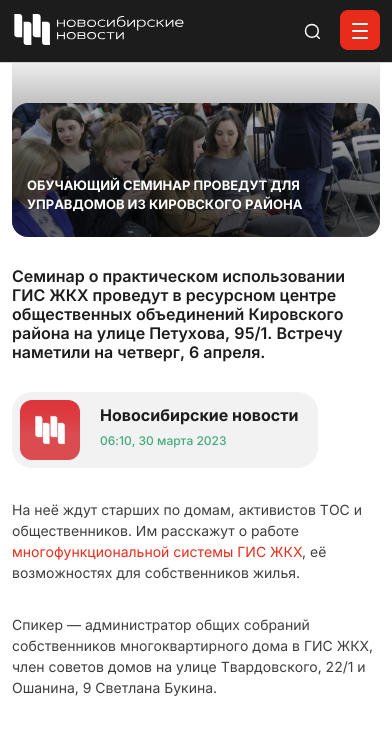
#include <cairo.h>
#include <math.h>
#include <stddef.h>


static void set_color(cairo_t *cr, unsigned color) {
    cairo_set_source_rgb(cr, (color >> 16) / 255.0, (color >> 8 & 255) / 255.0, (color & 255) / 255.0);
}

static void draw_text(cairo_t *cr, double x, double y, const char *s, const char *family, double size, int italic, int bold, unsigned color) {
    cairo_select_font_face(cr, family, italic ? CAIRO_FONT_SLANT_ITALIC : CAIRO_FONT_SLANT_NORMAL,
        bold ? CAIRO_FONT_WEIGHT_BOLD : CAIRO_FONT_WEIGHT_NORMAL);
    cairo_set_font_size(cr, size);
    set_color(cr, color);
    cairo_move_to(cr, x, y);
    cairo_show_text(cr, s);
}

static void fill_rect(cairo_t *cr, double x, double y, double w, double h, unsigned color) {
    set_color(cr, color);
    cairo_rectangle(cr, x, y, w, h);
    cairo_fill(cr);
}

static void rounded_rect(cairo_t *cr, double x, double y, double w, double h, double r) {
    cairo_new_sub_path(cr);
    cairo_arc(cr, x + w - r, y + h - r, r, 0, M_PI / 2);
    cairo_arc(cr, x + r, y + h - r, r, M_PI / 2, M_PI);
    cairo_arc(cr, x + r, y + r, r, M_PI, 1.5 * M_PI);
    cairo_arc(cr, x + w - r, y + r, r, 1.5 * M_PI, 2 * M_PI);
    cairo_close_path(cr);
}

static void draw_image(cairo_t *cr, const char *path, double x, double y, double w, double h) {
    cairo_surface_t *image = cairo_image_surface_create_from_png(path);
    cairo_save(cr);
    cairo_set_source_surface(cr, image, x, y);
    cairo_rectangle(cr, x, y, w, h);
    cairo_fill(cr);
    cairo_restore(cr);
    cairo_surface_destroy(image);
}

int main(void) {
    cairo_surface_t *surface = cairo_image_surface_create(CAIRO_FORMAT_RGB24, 392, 734);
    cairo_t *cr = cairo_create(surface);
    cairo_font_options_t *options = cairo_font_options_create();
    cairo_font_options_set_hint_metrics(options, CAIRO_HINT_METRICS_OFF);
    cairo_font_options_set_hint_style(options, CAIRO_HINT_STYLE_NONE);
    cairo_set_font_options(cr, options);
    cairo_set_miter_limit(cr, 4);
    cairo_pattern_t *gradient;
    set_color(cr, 0xFFFFFF);
    cairo_paint(cr);
    draw_image(cr, "assets/img3.png", 12, 103, 368, 134);
    gradient = cairo_pattern_create_linear(196, 237, 196, 47);
    cairo_pattern_add_color_stop_rgba(gradient, 0.27, 0, 0, 0, 0.6);
    cairo_pattern_add_color_stop_rgba(gradient, 1, 0, 0, 0, 0);
    cairo_set_source(cr, gradient);
    cairo_pattern_destroy(gradient);
    rounded_rect(cr, 12, 47, 368, 190, 16);
    cairo_fill(cr);
    fill_rect(cr, 0, 0, 392, 62, 0x1C1C1C);
    fill_rect(cr, 0, 62, 392, 1, 0xD2D2D2);
    draw_image(cr, "assets/img1.png", 14, 14, 170, 31);
    draw_image(cr, "assets/img2.png", 304, 23, 16, 16);
    set_color(cr, 0xE92B19);
    rounded_rect(cr, 340, 10, 40, 40, 8);
    cairo_fill(cr);
    set_color(cr, 0xFFFFFF);
    rounded_rect(cr, 352, 23, 16, 2, 1);
    cairo_fill(cr);
    rounded_rect(cr, 352, 30, 16, 2, 1);
    cairo_fill(cr);
    rounded_rect(cr, 352, 37, 16, 2, 1);
    cairo_fill(cr);
    draw_text(cr, 27, 190, "ОБУЧАЮЩИЙ СЕМИНАР ПРОВЕДУТ ДЛЯ", "Inter", 13, 0, 1, 0xFFFFFF);
    draw_text(cr, 27, 209, "УПРАВДОМОВ ИЗ КИРОВСКОГО РАЙОНА", "Inter", 13, 0, 1, 0xFFFFFF);
    draw_text(cr, 12, 282, "Семинар о практическом использовании", "Inter SemiBold", 16, 0, 0, 0x1C1C1C);
    draw_text(cr, 12, 301, "ГИС ЖКХ проведут в ресурсном центре", "Inter SemiBold", 16, 0, 0, 0x1C1C1C);
    draw_text(cr, 12, 320, "общественных объединений Кировского", "Inter SemiBold", 16, 0, 0, 0x1C1C1C);
    draw_text(cr, 12, 339, "района на улице Петухова, 95/1. Встречу", "Inter SemiBold", 16, 0, 0, 0x1C1C1C);
    draw_text(cr, 12, 358, "наметили на четверг, 6 апреля.", "Inter SemiBold", 16, 0, 0, 0x1C1C1C);
    set_color(cr, 0xF2F2F2);
    rounded_rect(cr, 12, 392, 306, 76, 20);
    cairo_fill(cr);
    draw_image(cr, "assets/img4.png", 20, 400, 60, 60);
    draw_text(cr, 100, 421, "Новосибирские новости", "Inter", 16, 0, 1, 0x1C1C1C);
    draw_text(cr, 100, 445, "06:10, 30 марта 2023", "Inter Medium", 12, 0, 0, 0x42AC7C);
    draw_text(cr, 12, 515, "На неё ждут старших по домам, активистов ТОС и", "Inter", 14, 0, 0, 0x3E3E3E);
    draw_text(cr, 12, 536, "общественников. Им расскажут о работе", "Inter", 14, 0, 0, 0x3E3E3E);
    draw_text(cr, 12, 557, "многофункциональной системы ГИС ЖКХ", "Inter", 14, 0, 0, 0xE92B19);
    draw_text(cr, 302, 557, ", её", "Inter", 14, 0, 0, 0x3E3E3E);
    draw_text(cr, 12, 578, "возможностях для собственников жилья.", "Inter", 14, 0, 0, 0x3E3E3E);
    draw_text(cr, 12, 630, "Спикер — администратор общих собраний", "Inter", 14, 0, 0, 0x3E3E3E);
    draw_text(cr, 12, 651, "собственников многоквартирного дома в ГИС ЖКХ,", "Inter", 14, 0, 0, 0x3E3E3E);
    draw_text(cr, 12, 672, "член советов домов на улице Твардовского, 22/1 и", "Inter", 14, 0, 0, 0x3E3E3E);
    draw_text(cr, 12, 693, "Ошанина, 9 Светлана Букина.", "Inter", 14, 0, 0, 0x3E3E3E);
    cairo_surface_write_to_png(surface, "output.png");
    cairo_font_options_destroy(options);
    cairo_destroy(cr);
    cairo_surface_destroy(surface);
    return 0;
}
